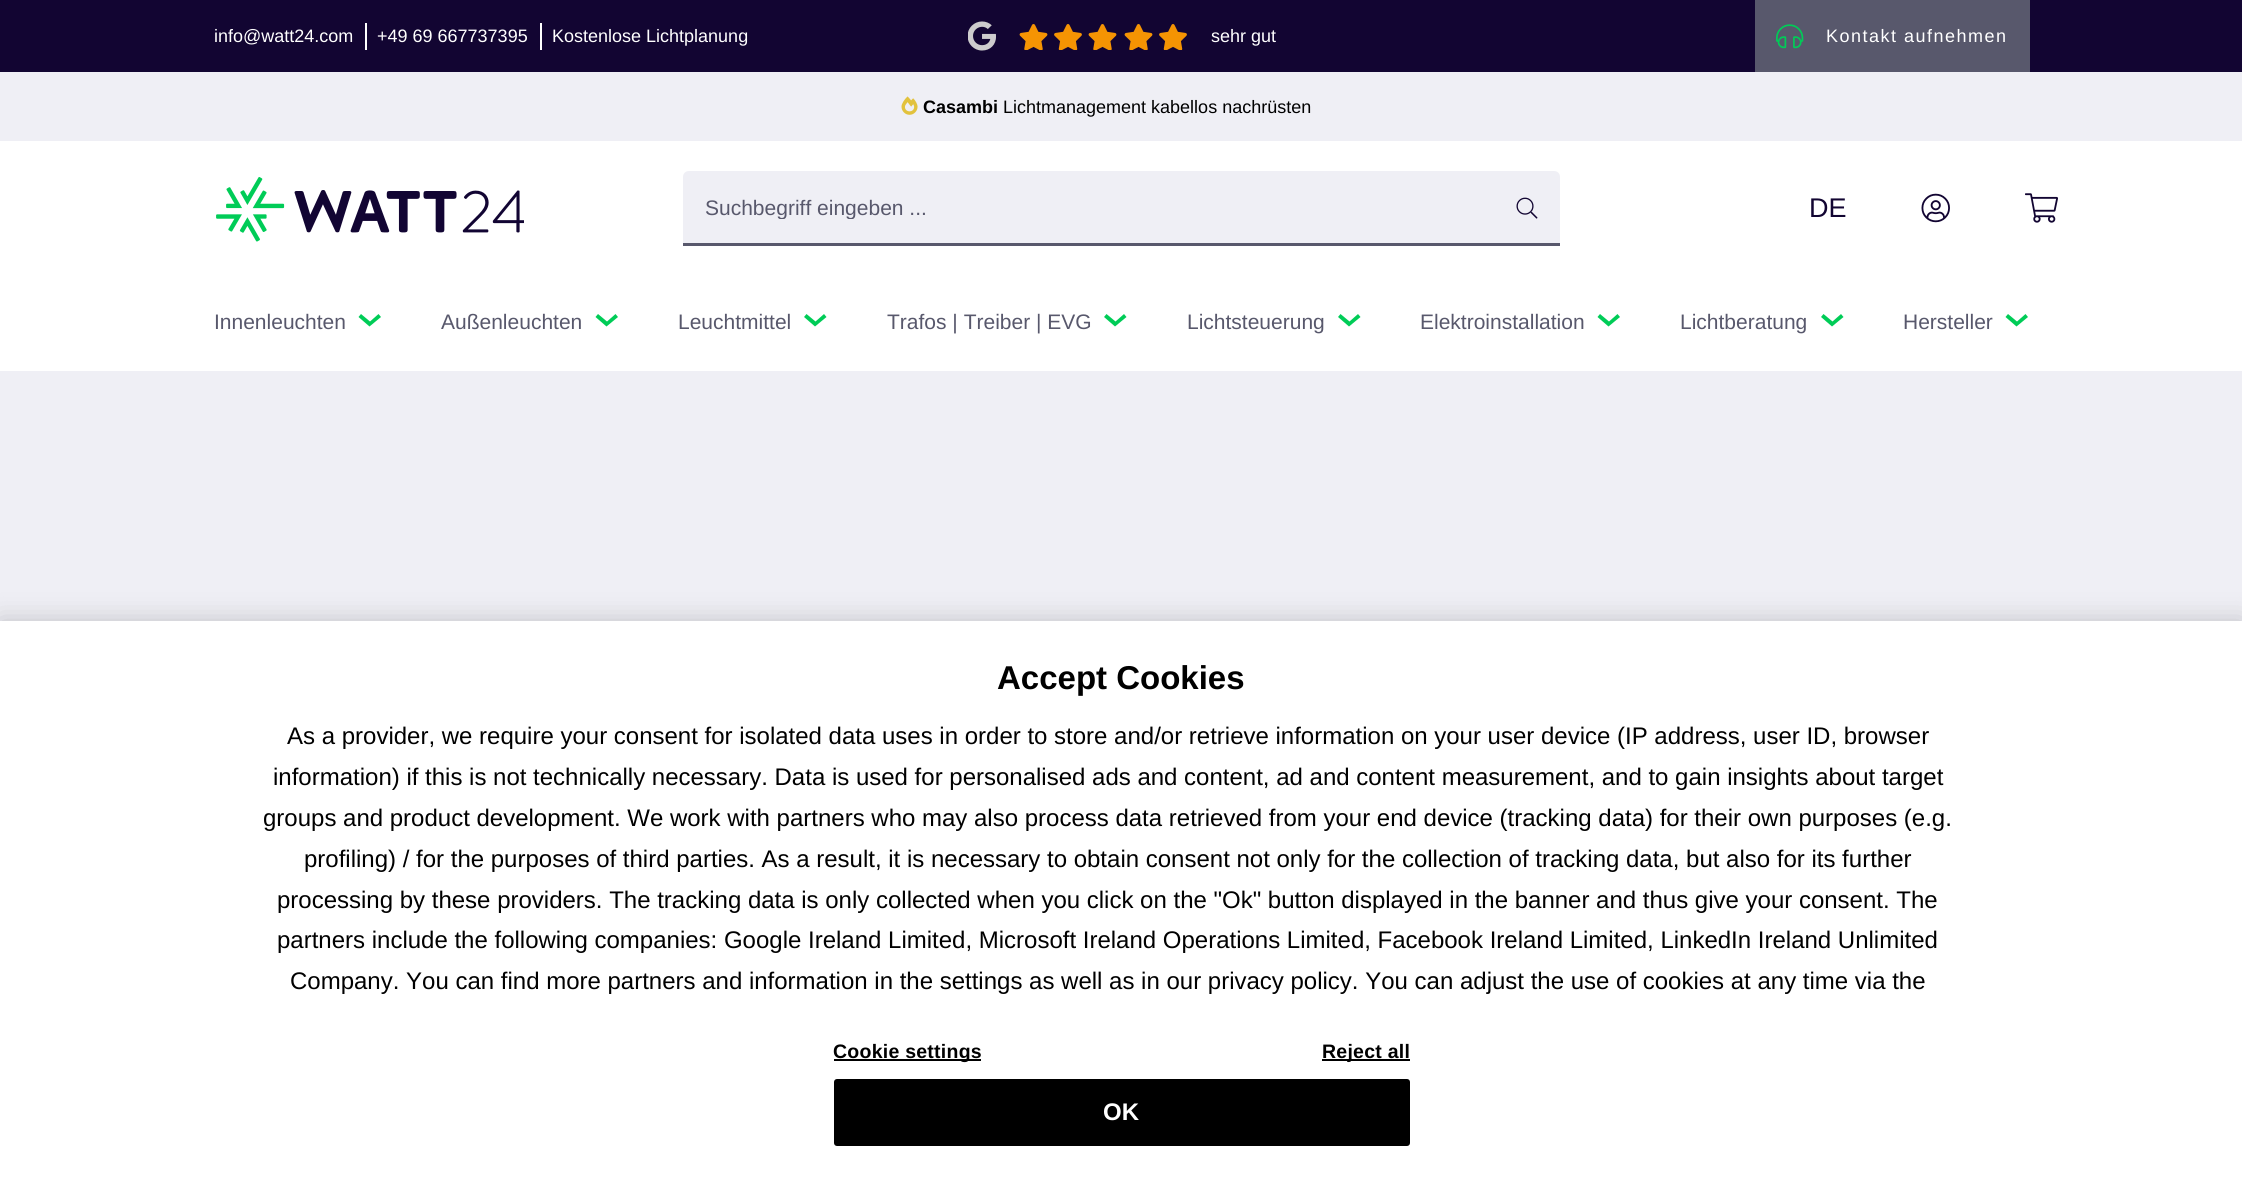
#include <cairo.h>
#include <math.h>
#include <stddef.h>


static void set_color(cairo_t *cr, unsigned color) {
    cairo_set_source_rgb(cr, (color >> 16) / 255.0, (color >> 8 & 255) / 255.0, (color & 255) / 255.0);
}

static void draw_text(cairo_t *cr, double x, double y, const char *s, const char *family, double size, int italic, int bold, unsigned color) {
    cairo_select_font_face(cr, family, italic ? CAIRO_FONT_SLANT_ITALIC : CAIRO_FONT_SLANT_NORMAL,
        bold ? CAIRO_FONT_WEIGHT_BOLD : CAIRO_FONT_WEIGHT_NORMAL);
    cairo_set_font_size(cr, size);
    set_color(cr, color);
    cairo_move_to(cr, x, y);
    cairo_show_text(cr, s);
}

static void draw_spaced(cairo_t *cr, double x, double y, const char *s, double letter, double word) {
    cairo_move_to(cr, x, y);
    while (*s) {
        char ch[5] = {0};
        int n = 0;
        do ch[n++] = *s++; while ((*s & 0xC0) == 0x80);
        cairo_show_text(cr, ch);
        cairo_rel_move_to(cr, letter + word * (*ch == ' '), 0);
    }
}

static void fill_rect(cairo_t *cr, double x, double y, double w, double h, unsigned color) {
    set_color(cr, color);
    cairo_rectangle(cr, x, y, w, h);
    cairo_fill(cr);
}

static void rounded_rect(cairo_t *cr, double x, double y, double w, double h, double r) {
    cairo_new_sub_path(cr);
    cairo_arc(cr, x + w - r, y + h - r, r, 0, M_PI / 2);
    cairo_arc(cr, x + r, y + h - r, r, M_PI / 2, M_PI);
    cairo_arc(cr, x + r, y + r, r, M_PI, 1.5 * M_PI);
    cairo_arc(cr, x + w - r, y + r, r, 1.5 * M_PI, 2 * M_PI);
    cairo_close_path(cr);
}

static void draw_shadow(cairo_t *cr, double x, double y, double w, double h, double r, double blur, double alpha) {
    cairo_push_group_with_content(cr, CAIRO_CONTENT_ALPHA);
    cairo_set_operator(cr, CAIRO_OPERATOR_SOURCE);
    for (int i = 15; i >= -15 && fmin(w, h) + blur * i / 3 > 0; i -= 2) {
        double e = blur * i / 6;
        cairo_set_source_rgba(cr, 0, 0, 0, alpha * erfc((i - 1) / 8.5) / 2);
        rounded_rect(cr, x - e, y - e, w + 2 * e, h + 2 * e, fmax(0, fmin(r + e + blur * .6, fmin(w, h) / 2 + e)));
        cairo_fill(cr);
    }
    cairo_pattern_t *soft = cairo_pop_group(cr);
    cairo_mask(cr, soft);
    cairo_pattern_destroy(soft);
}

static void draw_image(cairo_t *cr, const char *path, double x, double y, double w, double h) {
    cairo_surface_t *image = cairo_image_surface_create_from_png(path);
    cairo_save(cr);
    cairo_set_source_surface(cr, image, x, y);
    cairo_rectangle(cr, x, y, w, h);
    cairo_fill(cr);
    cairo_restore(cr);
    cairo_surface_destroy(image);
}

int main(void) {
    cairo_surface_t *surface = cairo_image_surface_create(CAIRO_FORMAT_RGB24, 2242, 1183);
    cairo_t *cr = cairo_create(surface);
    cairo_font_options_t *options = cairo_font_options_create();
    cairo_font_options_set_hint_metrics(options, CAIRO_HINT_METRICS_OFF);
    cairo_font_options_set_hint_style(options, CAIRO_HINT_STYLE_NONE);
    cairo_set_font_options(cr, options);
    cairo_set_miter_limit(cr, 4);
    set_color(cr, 0xEFEFF5);
    cairo_paint(cr);
    fill_rect(cr, 0, 141, 2242, 230, 0xFFFFFF);
    fill_rect(cr, 0, 0, 2242, 72, 0x120532);
    fill_rect(cr, 365, 23, 2, 27, 0xFFFFFF);
    draw_text(cr, 214, 42, "info@watt24.com", "Liberation Sans", 18, 0, 0, 0xFFFFFF);
    fill_rect(cr, 540, 23, 2, 27, 0xFFFFFF);
    draw_text(cr, 377, 42, "+49 69 667737395", "Liberation Sans", 18, 0, 0, 0xFFFFFF);
    draw_text(cr, 552, 42, "Kostenlose Lichtplanung", "Liberation Sans", 18, 0, 0, 0xFFFFFF);
    draw_image(cr, "assets/img1.png", 968, 21, 28, 30);
    draw_image(cr, "assets/img2.png", 1019, 24, 29, 26);
    draw_image(cr, "assets/img3.png", 1054, 24, 28, 26);
    draw_image(cr, "assets/img2.png", 1088, 24, 29, 26);
    draw_image(cr, "assets/img2.png", 1124, 24, 29, 26);
    draw_image(cr, "assets/img3.png", 1159, 24, 28, 26);
    draw_text(cr, 1211, 42, "sehr gut", "Liberation Sans", 18, 0, 0, 0xFFFFFF);
    fill_rect(cr, 1755, 0, 275, 72, 0x58586C);
    draw_image(cr, "assets/img4.png", 1776, 24, 28, 25);
    set_color(cr, 0xFFFFFF);
    draw_spaced(cr, 1826, 42, "Kontakt aufnehmen", 1.5, 0);
    draw_image(cr, "assets/img5.png", 901, 96, 17, 19);
    draw_text(cr, 923, 113, "Casambi", "Liberation Sans", 18, 0, 1, 0x000000);
    draw_text(cr, 1003, 113, "Lichtmanagement kabellos nachrüsten", "Liberation Sans", 18, 0, 0, 0x000000);
    draw_image(cr, "assets/img6.png", 216, 177, 308, 65);
    set_color(cr, 0xEFEFF5);
    cairo_new_path(cr);
    cairo_move_to(cr, 689, 171);
    cairo_line_to(cr, 1554, 171);
    cairo_curve_to(cr, 1557.5, 171, 1560, 173.5, 1560, 177);
    cairo_line_to(cr, 1560, 246);
    cairo_line_to(cr, 683, 246);
    cairo_line_to(cr, 683, 177);
    cairo_curve_to(cr, 683, 173.5, 685.5, 171, 689, 171);
    cairo_close_path(cr);
    cairo_fill(cr);
    fill_rect(cr, 683, 243, 877, 3, 0x58586C);
    cairo_save(cr);
    cairo_rectangle(cr, 705, 195, 833, 24);
    cairo_clip(cr);
    draw_text(cr, 705, 215, "Suchbegriff eingeben ...", "Liberation Sans", 21, 0, 0, 0x58586C);
    cairo_restore(cr);
    draw_image(cr, "assets/img7.png", 1516, 197, 22, 22);
    draw_text(cr, 1809, 217, "DE", "Liberation Sans", 27, 0, 0, 0x120532);
    draw_image(cr, "assets/img8.png", 1921, 193, 29, 30);
    draw_image(cr, "assets/img9.png", 2025, 193, 33, 30);
    draw_text(cr, 214, 329, "Innenleuchten", "Liberation Sans", 21, 0, 0, 0x58586C);
    set_color(cr, 0x00CC57);
    cairo_new_path(cr);
    cairo_move_to(cr, 369.5, 326.5);
    cairo_line_to(cr, 358.5, 317);
    cairo_line_to(cr, 361, 314);
    cairo_line_to(cr, 370, 321.5);
    cairo_line_to(cr, 378.5, 314);
    cairo_line_to(cr, 381, 317);
    cairo_close_path(cr);
    cairo_fill(cr);
    draw_text(cr, 441, 329, "Außenleuchten", "Liberation Sans", 21, 0, 0, 0x58586C);
    set_color(cr, 0x00CC57);
    cairo_new_path(cr);
    cairo_move_to(cr, 606.5, 326.5);
    cairo_line_to(cr, 595.5, 317);
    cairo_line_to(cr, 598, 314);
    cairo_line_to(cr, 607, 321.5);
    cairo_line_to(cr, 615.5, 314);
    cairo_line_to(cr, 618, 317);
    cairo_close_path(cr);
    cairo_fill(cr);
    draw_text(cr, 678, 329, "Leuchtmittel", "Liberation Sans", 21, 0, 0, 0x58586C);
    set_color(cr, 0x00CC57);
    cairo_new_path(cr);
    cairo_move_to(cr, 815, 326.5);
    cairo_line_to(cr, 804, 317);
    cairo_line_to(cr, 806.5, 314);
    cairo_line_to(cr, 815.5, 321.5);
    cairo_line_to(cr, 824, 314);
    cairo_line_to(cr, 826.5, 317);
    cairo_close_path(cr);
    cairo_fill(cr);
    draw_text(cr, 887, 329, "Trafos | Treiber | EVG", "Liberation Sans", 21, 0, 0, 0x58586C);
    set_color(cr, 0x00CC57);
    cairo_new_path(cr);
    cairo_move_to(cr, 1115, 326.5);
    cairo_line_to(cr, 1104, 317);
    cairo_line_to(cr, 1106.5, 314);
    cairo_line_to(cr, 1115.5, 321.5);
    cairo_line_to(cr, 1124, 314);
    cairo_line_to(cr, 1126.5, 317);
    cairo_close_path(cr);
    cairo_fill(cr);
    draw_text(cr, 1187, 329, "Lichtsteuerung", "Liberation Sans", 21, 0, 0, 0x58586C);
    set_color(cr, 0x00CC57);
    cairo_new_path(cr);
    cairo_move_to(cr, 1349, 326.5);
    cairo_line_to(cr, 1338, 317);
    cairo_line_to(cr, 1340.5, 314);
    cairo_line_to(cr, 1349.5, 321.5);
    cairo_line_to(cr, 1358, 314);
    cairo_line_to(cr, 1360.5, 317);
    cairo_close_path(cr);
    cairo_fill(cr);
    draw_text(cr, 1420, 329, "Elektroinstallation", "Liberation Sans", 21, 0, 0, 0x58586C);
    set_color(cr, 0x00CC57);
    cairo_new_path(cr);
    cairo_move_to(cr, 1608.5, 326.5);
    cairo_line_to(cr, 1597.5, 317);
    cairo_line_to(cr, 1600, 314);
    cairo_line_to(cr, 1609, 321.5);
    cairo_line_to(cr, 1617.5, 314);
    cairo_line_to(cr, 1620, 317);
    cairo_close_path(cr);
    cairo_fill(cr);
    draw_text(cr, 1680, 329, "Lichtberatung", "Liberation Sans", 21, 0, 0, 0x58586C);
    set_color(cr, 0x00CC57);
    cairo_new_path(cr);
    cairo_move_to(cr, 1832, 326.5);
    cairo_line_to(cr, 1821, 317);
    cairo_line_to(cr, 1823.5, 314);
    cairo_line_to(cr, 1832.5, 321.5);
    cairo_line_to(cr, 1841, 314);
    cairo_line_to(cr, 1843.5, 317);
    cairo_close_path(cr);
    cairo_fill(cr);
    draw_text(cr, 1903, 329, "Hersteller", "Liberation Sans", 21, 0, 0, 0x58586C);
    set_color(cr, 0x00CC57);
    cairo_new_path(cr);
    cairo_move_to(cr, 2016.5, 326.5);
    cairo_line_to(cr, 2005.5, 317);
    cairo_line_to(cr, 2008, 314);
    cairo_line_to(cr, 2017, 321.5);
    cairo_line_to(cr, 2025.5, 314);
    cairo_line_to(cr, 2028, 317);
    cairo_close_path(cr);
    cairo_fill(cr);
    set_color(cr, 0x000000);
    draw_shadow(cr, 0, 621, 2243, 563, 0, 13.5, 0.2);
    fill_rect(cr, 0, 621, 2242, 562, 0xFFFFFF);
    draw_text(cr, 997, 689, "Accept Cookies", "Liberation Sans", 33, 0, 1, 0x000000);
    draw_text(cr, 287, 744, "As a provider, we require your consent for isolated data uses in order to store and/or retrieve information on your user device (IP address, user ID, browser", "Liberation Sans", 24, 0, 0, 0x000000);
    draw_text(cr, 273, 785, "information) if this is not technically necessary. Data is used for personalised ads and content, ad and content measurement, and to gain insights about target", "Liberation Sans", 24, 0, 0, 0x000000);
    draw_text(cr, 263, 826, "groups and product development. We work with partners who may also process data retrieved from your end device (tracking data) for their own purposes (e.g.", "Liberation Sans", 24, 0, 0, 0x000000);
    draw_text(cr, 304, 867, "profiling) / for the purposes of third parties. As a result, it is necessary to obtain consent not only for the collection of tracking data, but also for its further", "Liberation Sans", 24, 0, 0, 0x000000);
    draw_text(cr, 277, 908, "processing by these providers. The tracking data is only collected when you click on the \"Ok\" button displayed in the banner and thus give your consent. The", "Liberation Sans", 24, 0, 0, 0x000000);
    draw_text(cr, 277, 948, "partners include the following companies: Google Ireland Limited, Microsoft Ireland Operations Limited, Facebook Ireland Limited, LinkedIn Ireland Unlimited", "Liberation Sans", 24, 0, 0, 0x000000);
    draw_text(cr, 290, 989, "Company. You can find more partners and information in the settings as well as in our privacy policy. You can adjust the use of cookies at any time via the", "Liberation Sans", 24, 0, 0, 0x000000);
    fill_rect(cr, 834, 1059, 147, 2, 0x000000);
    cairo_select_font_face(cr, "Liberation Sans", CAIRO_FONT_SLANT_NORMAL, CAIRO_FONT_WEIGHT_BOLD);
    cairo_set_font_size(cr, 19.5);
    draw_spaced(cr, 833, 1058, "Cookie settings", 0.25, 0);
    fill_rect(cr, 1322, 1059, 88, 2, 0x000000);
    draw_spaced(cr, 1322, 1058, "Reject all", 0.25, 0);
    rounded_rect(cr, 835, 1080, 574, 65, 2);
    cairo_fill_preserve(cr);
    cairo_stroke(cr);
    draw_text(cr, 1103, 1120, "OK", "Liberation Sans", 24, 0, 1, 0xFFFFFF);
    cairo_surface_write_to_png(surface, "output.png");
    cairo_font_options_destroy(options);
    cairo_destroy(cr);
    cairo_surface_destroy(surface);
    return 0;
}
